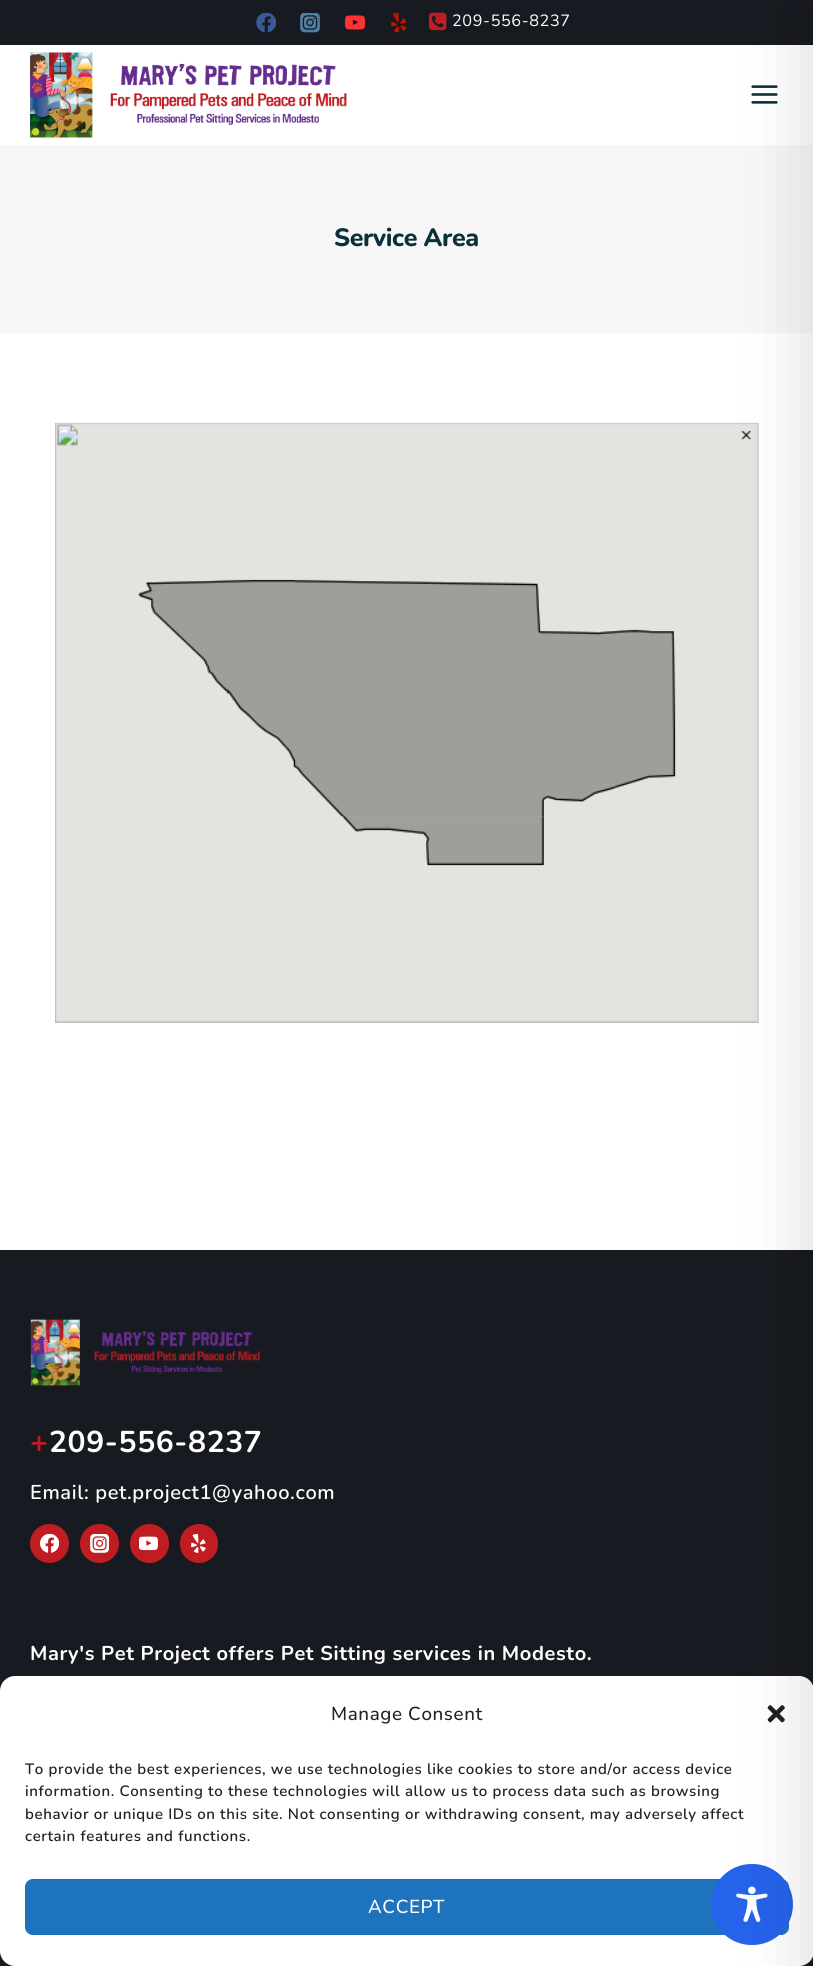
#include <cairo.h>
#include <math.h>
#include <stddef.h>


static void set_color(cairo_t *cr, unsigned color) {
    cairo_set_source_rgb(cr, (color >> 16) / 255.0, (color >> 8 & 255) / 255.0, (color & 255) / 255.0);
}

static void draw_spaced(cairo_t *cr, double x, double y, const char *s, double letter, double word) {
    cairo_move_to(cr, x, y);
    while (*s) {
        char ch[5] = {0};
        int n = 0;
        do ch[n++] = *s++; while ((*s & 0xC0) == 0x80);
        cairo_show_text(cr, ch);
        cairo_rel_move_to(cr, letter + word * (*ch == ' '), 0);
    }
}

static void fill_rect(cairo_t *cr, double x, double y, double w, double h, unsigned color) {
    set_color(cr, color);
    cairo_rectangle(cr, x, y, w, h);
    cairo_fill(cr);
}

static void rounded_rect(cairo_t *cr, double x, double y, double w, double h, double r) {
    cairo_new_sub_path(cr);
    cairo_arc(cr, x + w - r, y + h - r, r, 0, M_PI / 2);
    cairo_arc(cr, x + r, y + h - r, r, M_PI / 2, M_PI);
    cairo_arc(cr, x + r, y + r, r, M_PI, 1.5 * M_PI);
    cairo_arc(cr, x + w - r, y + r, r, 1.5 * M_PI, 2 * M_PI);
    cairo_close_path(cr);
}

static void draw_shadow(cairo_t *cr, double x, double y, double w, double h, double r, double blur, double alpha) {
    cairo_push_group_with_content(cr, CAIRO_CONTENT_ALPHA);
    cairo_set_operator(cr, CAIRO_OPERATOR_SOURCE);
    for (int i = 15; i >= -15 && fmin(w, h) + blur * i / 3 > 0; i -= 2) {
        double e = blur * i / 6;
        cairo_set_source_rgba(cr, 0, 0, 0, alpha * erfc((i - 1) / 8.5) / 2);
        rounded_rect(cr, x - e, y - e, w + 2 * e, h + 2 * e, fmax(0, fmin(r + e + blur * .6, fmin(w, h) / 2 + e)));
        cairo_fill(cr);
    }
    cairo_pattern_t *soft = cairo_pop_group(cr);
    cairo_mask(cr, soft);
    cairo_pattern_destroy(soft);
}

static void draw_image(cairo_t *cr, const char *path, double x, double y, double w, double h) {
    cairo_surface_t *image = cairo_image_surface_create_from_png(path);
    cairo_save(cr);
    cairo_set_source_surface(cr, image, x, y);
    cairo_rectangle(cr, x, y, w, h);
    cairo_fill(cr);
    cairo_restore(cr);
    cairo_surface_destroy(image);
}

int main(void) {
    cairo_surface_t *surface = cairo_image_surface_create(CAIRO_FORMAT_RGB24, 813, 1966);
    cairo_t *cr = cairo_create(surface);
    cairo_font_options_t *options = cairo_font_options_create();
    cairo_font_options_set_hint_metrics(options, CAIRO_HINT_METRICS_OFF);
    cairo_font_options_set_hint_style(options, CAIRO_HINT_STYLE_NONE);
    cairo_set_font_options(cr, options);
    cairo_set_miter_limit(cr, 4);
    set_color(cr, 0xFFFFFF);
    cairo_paint(cr);
    fill_rect(cr, 0, 0, 813, 45, 0x181A21);
    draw_image(cr, "assets/img1.png", 256, 13, 20, 20);
    draw_image(cr, "assets/img2.png", 300, 13, 20, 20);
    draw_image(cr, "assets/img3.png", 345, 15, 20, 15);
    draw_image(cr, "assets/img4.png", 391, 13, 16, 20);
    draw_image(cr, "assets/img5.png", 428, 12, 19, 19);
    cairo_select_font_face(cr, "Nunito", CAIRO_FONT_SLANT_NORMAL, CAIRO_FONT_WEIGHT_NORMAL);
    cairo_set_font_size(cr, 16.25);
    set_color(cr, 0xFFFFFF);
    draw_spaced(cr, 452, 26, "209-556-8237", 0.62, 0);
    draw_image(cr, "assets/img6.png", 30, 52, 317, 86);
    draw_image(cr, "assets/img7.png", 751, 85, 27, 19);
    fill_rect(cr, 0, 145, 813, 188, 0xF7F7F7);
    cairo_select_font_face(cr, "Nunito ExtraBold", CAIRO_FONT_SLANT_NORMAL, CAIRO_FONT_WEIGHT_NORMAL);
    cairo_set_font_size(cr, 25);
    set_color(cr, 0x0A303A);
    draw_spaced(cr, 334, 246, "Service Area", -0.4, 0);
    draw_image(cr, "assets/img8.png", 55, 422, 704, 601);
    fill_rect(cr, 0, 1250, 813, 716, 0x181A21);
    draw_image(cr, "assets/img9.png", 30, 1318, 231, 69);
    cairo_select_font_face(cr, "Nunito", CAIRO_FONT_SLANT_NORMAL, CAIRO_FONT_WEIGHT_BOLD);
    cairo_set_font_size(cr, 30);
    set_color(cr, 0xC01D22);
    draw_spaced(cr, 30, 1452, "+", 0.62, 0);
    set_color(cr, 0xFFFFFF);
    draw_spaced(cr, 49, 1452, "209-556-8237", 0.62, 0);
    cairo_select_font_face(cr, "Nunito SemiBold", CAIRO_FONT_SLANT_NORMAL, CAIRO_FONT_WEIGHT_NORMAL);
    cairo_set_font_size(cr, 20);
    draw_spaced(cr, 30, 1499, "Email: pet.project1@yahoo.com", 0.62, 0);
    set_color(cr, 0xC01D22);
    cairo_new_path(cr);
    cairo_arc(cr, 49.5, 1543.5, 19.5, 0, 2 * M_PI);
    cairo_fill(cr);
    draw_image(cr, "assets/img10.png", 40, 1534, 19, 19);
    cairo_arc(cr, 99.5, 1543.5, 19.5, 0, 2 * M_PI);
    cairo_fill(cr);
    draw_image(cr, "assets/img11.png", 90, 1534, 19, 19);
    cairo_arc(cr, 149.5, 1543.5, 19.5, 0, 2 * M_PI);
    cairo_fill(cr);
    draw_image(cr, "assets/img12.png", 139, 1536, 19, 15);
    rounded_rect(cr, 180, 1524, 38, 39, 19);
    cairo_fill(cr);
    draw_image(cr, "assets/img13.png", 191, 1534, 15, 19);
    cairo_select_font_face(cr, "Nunito", CAIRO_FONT_SLANT_NORMAL, CAIRO_FONT_WEIGHT_BOLD);
    set_color(cr, 0xFFFFFF);
    draw_spaced(cr, 30, 1660, "Mary's Pet Project offers Pet Sitting services in Modesto.", 0.62, 0);
    rounded_rect(cr, 0, 1676, 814, 290, 15);
    cairo_fill(cr);
    draw_image(cr, "assets/img14.png", 767, 1705, 18, 18);
    set_color(cr, 0x1E73BE);
    rounded_rect(cr, 25.5, 1879.5, 763, 55, 7.5);
    cairo_fill_preserve(cr);
    cairo_set_line_width(cr, 1);
    cairo_stroke(cr);
    set_color(cr, 0x2563EB);
    rounded_rect(cr, 711, 1864, 82, 81, 40.5);
    cairo_fill(cr);
    draw_image(cr, "assets/img15.png", 736, 1886, 32, 37);
    set_color(cr, 0x000000);
    draw_shadow(cr, 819, 13, 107, 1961, 0, 37.5, 0.2);
    cairo_select_font_face(cr, "Nunito Medium", CAIRO_FONT_SLANT_NORMAL, CAIRO_FONT_WEIGHT_NORMAL);
    cairo_set_font_size(cr, 18.75);
    set_color(cr, 0x222222);
    draw_spaced(cr, 331, 1720, "Manage Consent", 0.62, 0);
    cairo_select_font_face(cr, "Nunito SemiBold", CAIRO_FONT_SLANT_NORMAL, CAIRO_FONT_WEIGHT_NORMAL);
    cairo_set_font_size(cr, 15);
    draw_spaced(cr, 25, 1774, "To provide the best experiences, we use technologies like cookies to store and/or access device", 0.62, 0);
    draw_spaced(cr, 25, 1796, "information. Consenting to these technologies will allow us to process data such as browsing", 0.62, 0);
    draw_spaced(cr, 25, 1819, "behavior or unique IDs on this site. Not consenting or withdrawing consent, may adversely affect", 0.62, 0);
    draw_spaced(cr, 25, 1841, "certain features and functions.", 0.62, 0);
    cairo_select_font_face(cr, "Nunito Medium", CAIRO_FONT_SLANT_NORMAL, CAIRO_FONT_WEIGHT_NORMAL);
    cairo_set_font_size(cr, 18.75);
    set_color(cr, 0xFFFFFF);
    draw_spaced(cr, 368, 1913, "ACCEPT", 0.62, 0);
    cairo_surface_write_to_png(surface, "output.png");
    cairo_font_options_destroy(options);
    cairo_destroy(cr);
    cairo_surface_destroy(surface);
    return 0;
}
